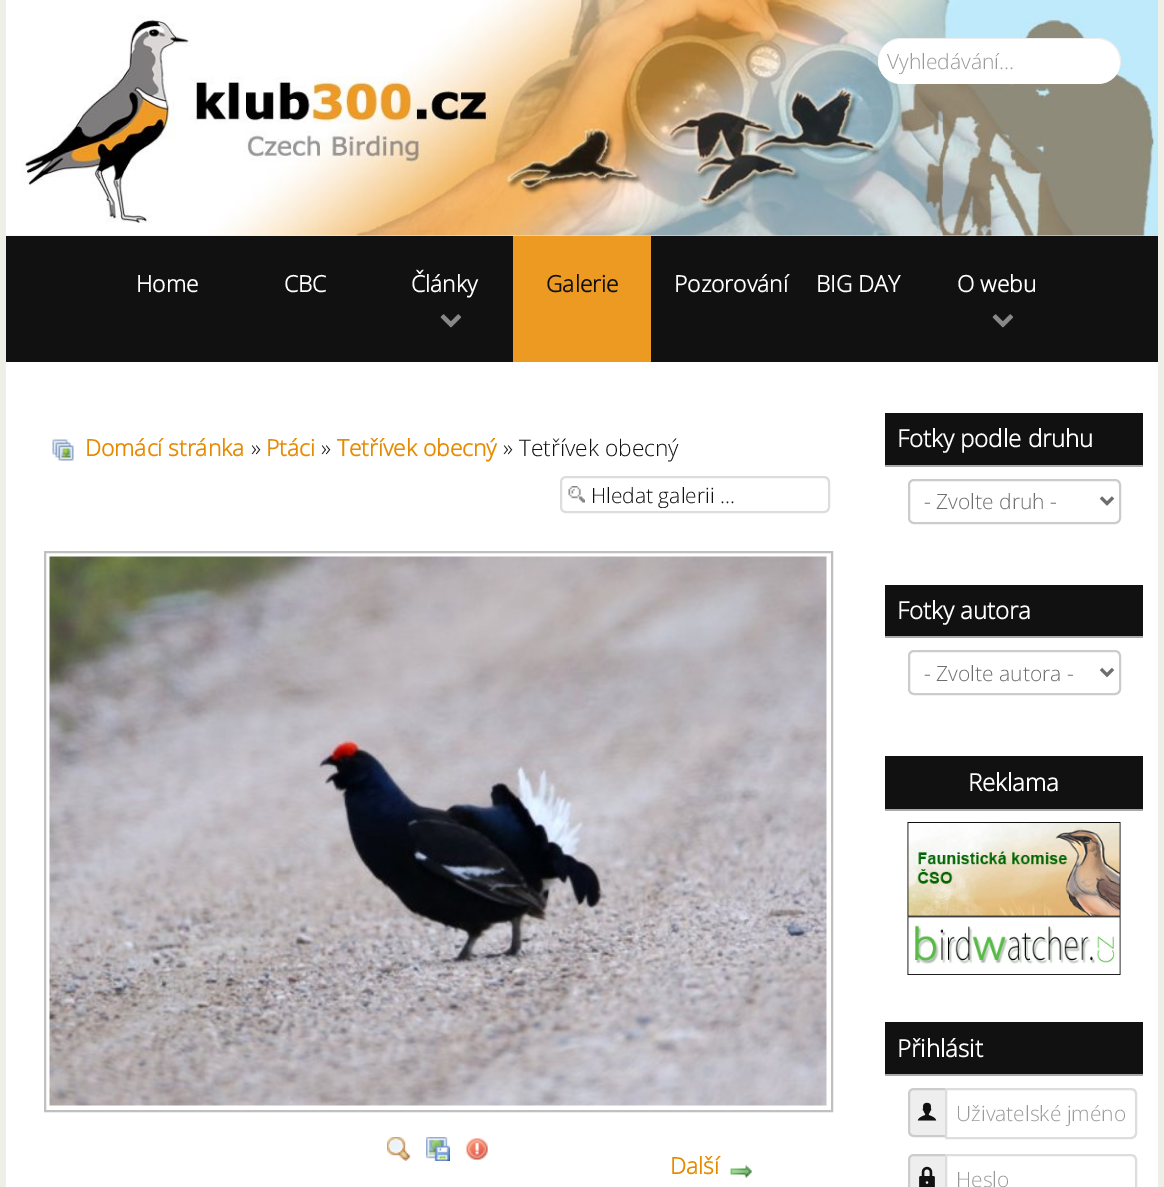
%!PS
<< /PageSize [1164 1187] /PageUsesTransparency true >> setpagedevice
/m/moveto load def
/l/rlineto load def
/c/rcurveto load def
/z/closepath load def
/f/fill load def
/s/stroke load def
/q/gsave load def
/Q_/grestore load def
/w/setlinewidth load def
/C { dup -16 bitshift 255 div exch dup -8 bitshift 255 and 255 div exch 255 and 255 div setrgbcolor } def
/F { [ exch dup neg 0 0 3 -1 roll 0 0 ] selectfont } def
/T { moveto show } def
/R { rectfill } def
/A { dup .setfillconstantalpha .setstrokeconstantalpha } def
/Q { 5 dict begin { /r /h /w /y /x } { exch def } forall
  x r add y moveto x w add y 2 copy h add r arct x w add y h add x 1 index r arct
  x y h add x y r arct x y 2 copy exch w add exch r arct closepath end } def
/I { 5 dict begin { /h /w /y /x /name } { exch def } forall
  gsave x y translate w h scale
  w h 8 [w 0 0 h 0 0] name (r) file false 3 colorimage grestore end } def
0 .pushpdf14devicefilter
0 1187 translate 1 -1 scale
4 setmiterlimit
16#EEEFE6 C
0 0 1164 1187 R
(1.rgb) 6 0 1152 236 I
16#FFFFFF C
878 38 243 46 23 Q f
0.07 A
16#000000 C
900 39 m 198 0 l 12 0 22 10 22 23 c 0 1 l 0 3 -1 7 -2 10 c 2 -4 3 -8 3 -12 c 0 -13 -10 -23 -23 -23 c -197 0 l -13 0 -23 10 -23 23 c 0 -12 10 -22 22 -22 c z f
/OpenSans-Light 21 F
1 A
16#999999 C
(Vyhledávání...) 887 69 T
16#111111 C
6 236 1152 126 R
/OpenSans-Bold 22.75 F
16#FFFFFF C
(Home) 136 292 T
(CBC) 284 292 T
(Články) 411 292 T
(2.rgb) 440 314 22 14 I
16#ED9A22 C
513 236 138 126 R
16#111111 C
(Galerie) 546 292 T
16#FFFFFF C
(Pozorování) 674 292 T
(BIG DAY) 816 292 T
(O webu) 957 292 T
(2.rgb) 992 314 22 14 I
6 362 1152 825 R
(3.rgb) 52 439 22 22 I
16#E68A00 C
(Domácí stránka) 85 456 T
/OpenSans-Light 22.75 F
16#111111 C
(») 251 456 T
/OpenSans-Bold 22.75 F
16#E68A00 C
(Ptáci) 266 456 T
/OpenSans-Light 22.75 F
16#111111 C
(») 321 456 T
/OpenSans-Bold 22.75 F
16#E68A00 C
(Tetřívek obecný) 337 456 T
/OpenSans-Light 22.75 F
16#111111 C
(» Tetřívek obecný) 503 456 T
(4.rgb) 568 486 17 17 I
16#ECECEC C
566 478 m 258 0 l 2 0 4 3 4 5 c 0 -3 -2 -6 -5 -6 c -257 0 l -3 0 -5 3 -5 6 c 0 -2 2 -5 5 -5 c z f
16#DDDDDD C
2 w
561 477 268 35 5 Q s
/OpenSans-Light 21 F
16#111111 C
(Hledat galerii ...) 591 503 T
16#C0C0C0 C
45 552 787 559 rectstroke
(5.rgb) 49 556 778 550 I
(6.rgb) 387 1137 24 24 I
(7.rgb) 426 1137 24 24 I
(8.rgb) 466 1138 22 22 I
/OpenSans-Bold 22.75 F
16#E68A00 C
(Další) 670 1174 T
(9.rgb) 730 1165 22 13 I
16#111111 C
885 413 258 52 R
16#AAAAAA C
885 465 258 2 R
/OpenSans-Bold 24 F
16#FFFFFF C
(Fotky podle druhu) 897 447 T
16#CCCCCC C
909 480 211 43 5 Q s
16#6D6D6D C
3 w
1101 497.5 m 6 6 l 6 -6 l s
/OpenSans-Light 21 F
(- Zvolte druh -) 924 509 T
16#111111 C
885 585 258 51 R
16#AAAAAA C
885 636 258 2 R
/OpenSans-Bold 24 F
16#FFFFFF C
(Fotky autora) 897 619 T
16#CCCCCC C
2 w
909 651 211 43 5 Q s
16#6D6D6D C
3 w
1101 669 m 6 6 l 6 -6 l s
/OpenSans-Light 21 F
(- Zvolte autora -) 924 681 T
16#111111 C
885 756 258 53 R
16#AAAAAA C
885 809 258 2 R
/OpenSans-Bold 24 F
16#FFFFFF C
(Reklama) 968 791 T
(10.rgb) 907 822 214 95 I
(11.rgb) 907 916 214 59 I
16#111111 C
885 1022 258 52 R
16#AAAAAA C
885 1074 258 2 R
16#FFFFFF C
(Přihlásit) 897 1057 T
16#EEEEEE C
914 1089 m 32 0 l 0 47 l -32 0 l -3 0 -5 -2 -5 -5 c 0 -37 l 0 -3 2 -5 5 -5 c z q f Q_
16#CCCCCC C
2 w
s
(12.rgb) 917 1102 20 19 I
16#FFFFFF C
945 1088 m 186 0 l 3.5 0 6 2.5 6 6 c 0 39 l 0 3.5 -2.5 6 -6 6 c -186 0 l z f
16#ECECEC C
947 1089 m 0 1 l 184 0 l 2 0 5 3 5 5 c 0 -3 -2 -6 -5 -6 c z f
16#DDDDDD C
946 1089 m 185 0 l 3 0 5 2 5 5 c 0 39 l 0 3 -2 5 -5 5 c -185 0 l z s
/OpenSans-Light 21 F
16#999999 C
(Uživatelské jméno) 956 1121 T
16#EEEEEE C
914 1155 m 32 0 l 0 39 l -32 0 l -3 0 -5 -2 -5 -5 c 0 -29 l 0 -3 2 -5 5 -5 c z q f Q_
16#CCCCCC C
s
(13.rgb) 919 1166 16 21 I
16#FFFFFF C
945 1154 m 186 0 l 3.5 0 6 2.5 6 6 c 0 27 l 0 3.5 -2.5 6 -6 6 c -186 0 l z f
16#ECECEC C
947 1155 m 0 1 l 184 0 l 2 0 5 3 5 5 c 0 -3 -2 -6 -5 -6 c z f
16#DDDDDD C
946 1155 m 185 0 l 3 0 5 2 5 5 c 0 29 l 0 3 -2 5 -5 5 c -185 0 l z s
16#999999 C
(Heslo) 956 1187 T
.poppdf14devicefilter showpage
